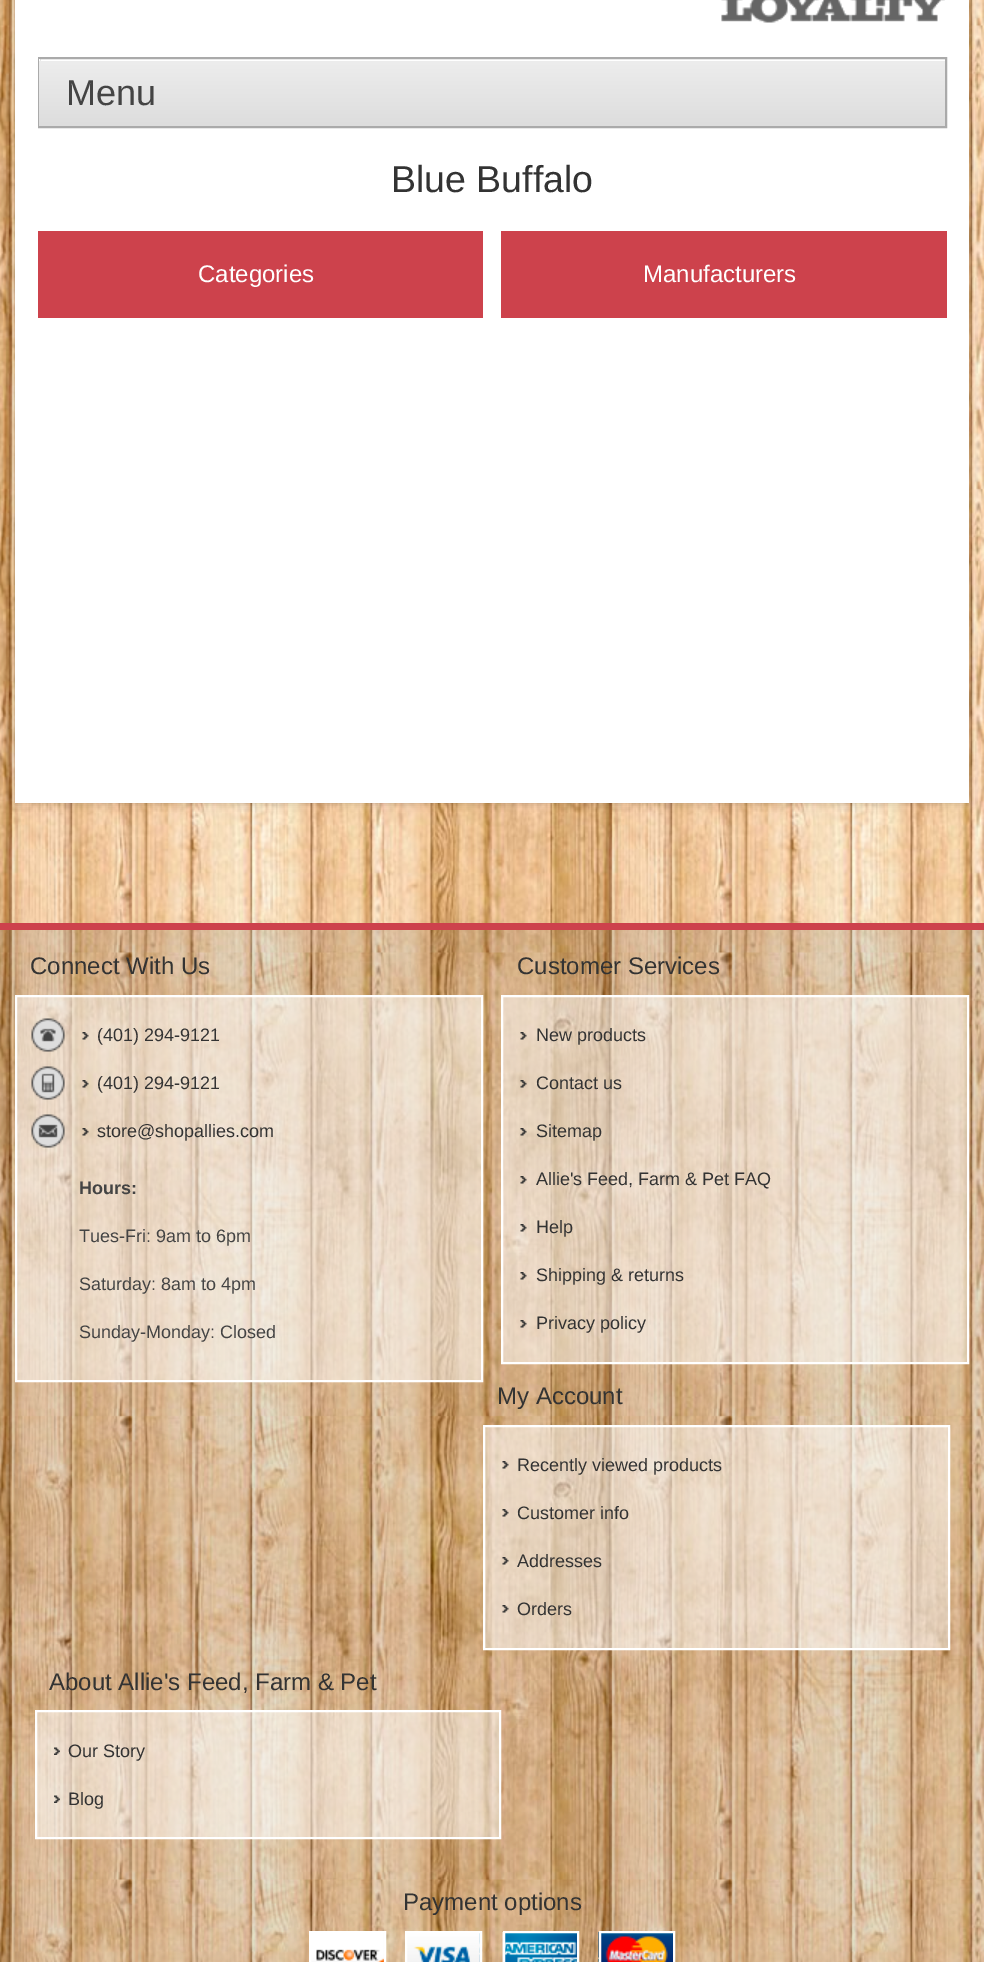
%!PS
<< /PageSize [984 1962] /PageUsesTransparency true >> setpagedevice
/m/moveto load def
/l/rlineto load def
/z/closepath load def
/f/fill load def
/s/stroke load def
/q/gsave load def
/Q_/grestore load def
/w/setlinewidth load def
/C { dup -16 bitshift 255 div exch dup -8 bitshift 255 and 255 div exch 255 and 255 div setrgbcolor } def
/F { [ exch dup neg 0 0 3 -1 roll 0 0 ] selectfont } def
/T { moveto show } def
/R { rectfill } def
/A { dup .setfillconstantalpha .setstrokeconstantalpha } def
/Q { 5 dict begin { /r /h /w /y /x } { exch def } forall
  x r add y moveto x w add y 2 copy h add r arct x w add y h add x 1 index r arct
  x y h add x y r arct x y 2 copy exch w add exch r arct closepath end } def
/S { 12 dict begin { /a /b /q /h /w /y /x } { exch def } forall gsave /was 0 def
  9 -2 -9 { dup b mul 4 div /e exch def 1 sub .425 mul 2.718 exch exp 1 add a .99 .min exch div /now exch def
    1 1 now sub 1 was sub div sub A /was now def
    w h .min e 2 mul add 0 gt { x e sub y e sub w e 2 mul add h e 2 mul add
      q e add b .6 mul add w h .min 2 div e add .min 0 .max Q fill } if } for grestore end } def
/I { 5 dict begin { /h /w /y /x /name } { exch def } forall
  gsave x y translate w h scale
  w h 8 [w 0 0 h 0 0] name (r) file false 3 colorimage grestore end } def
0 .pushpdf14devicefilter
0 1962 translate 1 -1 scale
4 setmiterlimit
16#FFFFFF C
0 0 984 1962 R
(1.rgb) 0 0 984 1962 I
16#000000 C
15 -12 954 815 0 4 .2 S
16#FFFFFF C
15 0 954 803 R
(2.rgb) 721 0 224 23 I
16#AAAAAA C
2 w
39 58 907 69 rectstroke
q 39 61 m 906 0 l 0 65 l -906 0 l z clip newpath
<< /ShadingType 2 /ColorSpace /DeviceRGB /Coords [492 58 492 126] /Extend [true true] /Function << /FunctionType 2 /Domain [0 1] /C0 [.933 .933 .933] /C1 [.867 .867 .867] /N 1 >> >> shfill Q_
16#FFFFFF C
39 59 1 2 R
/LiberationSans-Regular 36 F
16#444444 C
(Menu) 66 105 T
/LiberationSans-Regular 37.5 F
16#333333 C
(Blue Buffalo) 391 192 T
16#CD424C C
38 231 445 87 R
/LiberationSans-Regular 24 F
16#FFFFFF C
(Categories) 198 282 T
16#CD424C C
501 231 446 87 R
16#FFFFFF C
(Manufacturers) 643 282 T
0.1 A
16#000000 C
0 930 984 1032 R
1 A
16#CD414C C
0 923 984 7 R
16#333333 C
(Connect With Us) 30 974 T
0.5 A
16#FFFFFF C
16 996 m 466 0 l 0 385 l -466 0 l z f
1 A
16 996 m 466 0 l 0 385 l -466 0 l z s
(3.rgb) 31 1018 34 34 I
(4.rgb) 82 1032 7 8 I
/LiberationSans-Regular 18 F
16#333333 C
(\(401\) 294-9121) 97 1041 T
(5.rgb) 31 1066 34 34 I
(6.rgb) 82 1080 7 8 I
(\(401\) 294-9121) 97 1089 T
(7.rgb) 31 1114 34 34 I
(8.rgb) 82 1128 7 8 I
(store@shopallies.com) 97 1137 T
/LiberationSans-Bold 18 F
16#444444 C
(Hours:) 79 1194 T
/LiberationSans-Regular 18 F
(Tues-Fri: 9am to 6pm) 79 1242 T
(Saturday: 8am to 4pm) 79 1290 T
(Sunday-Monday: Closed) 79 1338 T
/LiberationSans-Regular 24 F
16#333333 C
(Customer Services) 517 974 T
0.5 A
16#FFFFFF C
502 996 m 466 0 l 0 367 l -466 0 l z f
1 A
502 996 m 466 0 l 0 367 l -466 0 l z s
(9.rgb) 520 1032 7 8 I
/LiberationSans-Regular 18 F
16#333333 C
(New products) 536 1041 T
(10.rgb) 520 1080 7 8 I
(Contact us) 536 1089 T
(11.rgb) 520 1128 7 8 I
(Sitemap) 536 1137 T
(12.rgb) 520 1176 7 8 I
(Allie's Feed, Farm & Pet FAQ) 536 1185 T
(13.rgb) 520 1224 7 8 I
(Help) 536 1233 T
(14.rgb) 520 1272 7 8 I
(Shipping & returns) 536 1281 T
(15.rgb) 520 1320 7 8 I
(Privacy policy) 536 1329 T
/LiberationSans-Regular 24 F
(My Account) 497 1404 T
0.5 A
16#FFFFFF C
484 1426 m 465 0 l 0 223 l -465 0 l z f
1 A
484 1426 m 465 0 l 0 223 l -465 0 l z s
(16.rgb) 502 1461 7 8 I
/LiberationSans-Regular 18 F
16#333333 C
(Recently viewed products) 517 1471 T
(17.rgb) 502 1509 7 8 I
(Customer info) 517 1519 T
(18.rgb) 502 1557 7 8 I
(Addresses) 517 1567 T
(19.rgb) 502 1605 7 8 I
(Orders) 517 1615 T
/LiberationSans-Regular 24 F
(About Allie's Feed, Farm & Pet) 49 1690 T
0.5 A
16#FFFFFF C
36 1711 m 464 0 l 0 127 l -464 0 l z f
1 A
36 1711 m 464 0 l 0 127 l -464 0 l z s
(20.rgb) 54 1747 6 8 I
/LiberationSans-Regular 18 F
16#333333 C
(Our Story) 68 1757 T
(21.rgb) 54 1795 6 8 I
(Blog) 68 1805 T
/LiberationSans-Regular 24 F
(Payment options) 403 1910 T
(22.rgb) 311 1933 73 29 I
16#FFFFFF C
310 1932 75 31 rectstroke
(23.rgb) 407 1933 73 29 I
406 1932 75 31 rectstroke
(24.rgb) 502 1932 75 30 I
504 1932 74 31 rectstroke
(25.rgb) 598 1932 75 30 I
600 1932 74 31 rectstroke
.poppdf14devicefilter showpage
